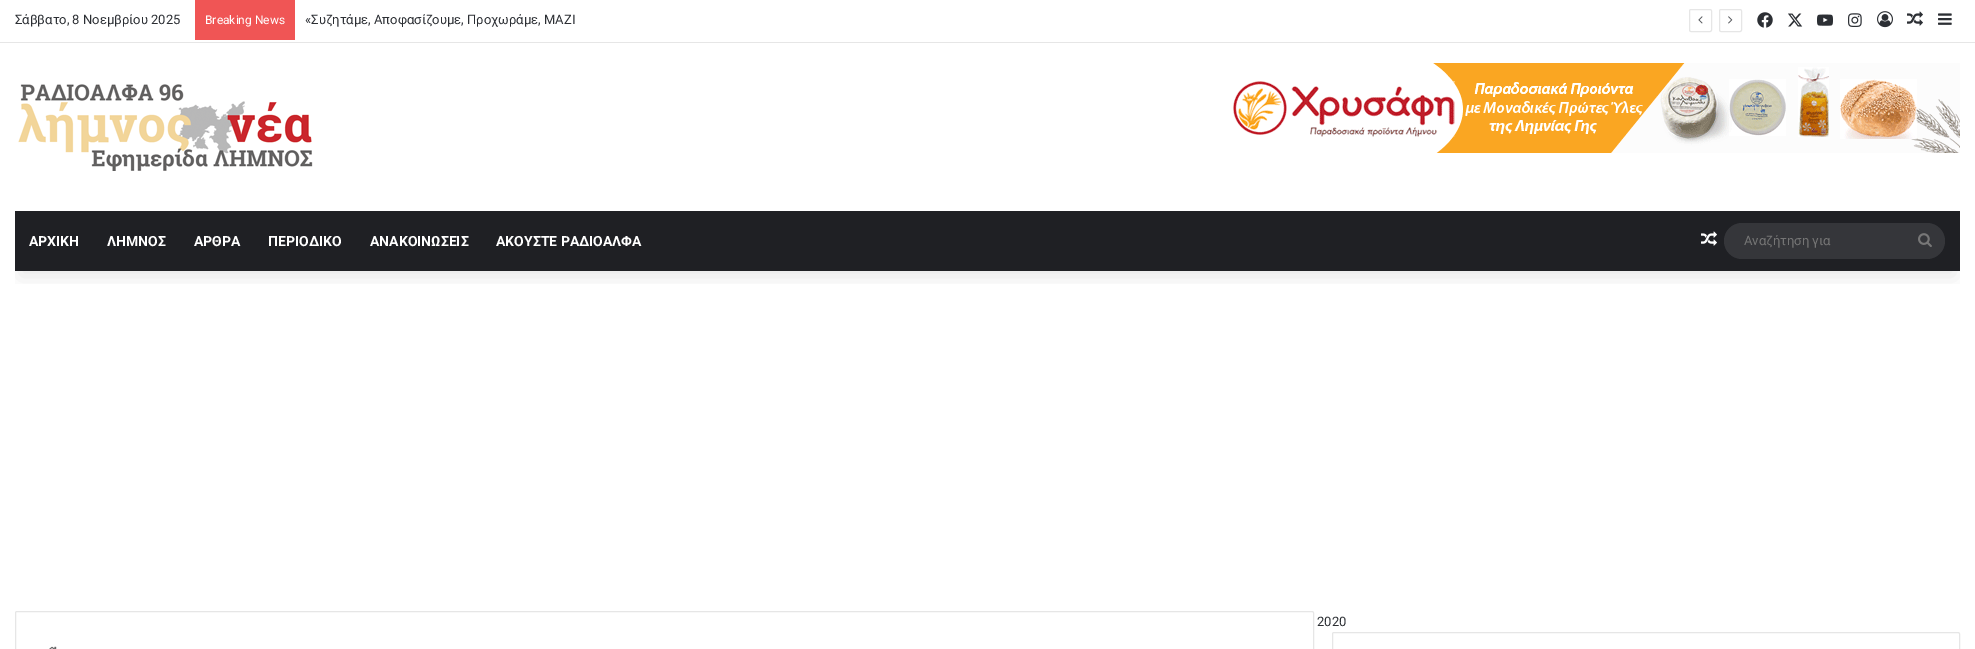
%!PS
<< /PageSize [1975 649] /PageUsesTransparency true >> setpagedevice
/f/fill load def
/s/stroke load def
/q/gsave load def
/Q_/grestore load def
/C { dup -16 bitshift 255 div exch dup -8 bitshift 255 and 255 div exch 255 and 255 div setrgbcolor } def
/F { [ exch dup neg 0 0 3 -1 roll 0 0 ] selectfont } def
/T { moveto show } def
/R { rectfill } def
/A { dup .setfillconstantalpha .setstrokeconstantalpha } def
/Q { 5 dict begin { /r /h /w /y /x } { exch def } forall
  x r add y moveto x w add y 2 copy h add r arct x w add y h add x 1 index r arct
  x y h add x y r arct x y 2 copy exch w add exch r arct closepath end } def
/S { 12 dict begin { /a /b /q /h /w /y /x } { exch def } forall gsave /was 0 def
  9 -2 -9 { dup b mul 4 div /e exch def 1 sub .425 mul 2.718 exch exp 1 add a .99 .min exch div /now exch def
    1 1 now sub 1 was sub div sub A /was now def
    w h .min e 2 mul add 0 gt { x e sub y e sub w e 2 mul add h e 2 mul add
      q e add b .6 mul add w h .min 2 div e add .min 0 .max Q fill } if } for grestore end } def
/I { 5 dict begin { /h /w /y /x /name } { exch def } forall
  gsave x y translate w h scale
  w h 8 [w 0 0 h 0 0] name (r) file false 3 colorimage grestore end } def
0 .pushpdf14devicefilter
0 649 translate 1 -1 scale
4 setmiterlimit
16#FFFFFF C
0 0 1975 649 R
q
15 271 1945 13 rectclip
16#000000 C
20 45 1935 231 0 10 .1 S
Q_
16#E6E6E6 C
0 42 1975 1 R
/Roboto-Regular 13 F
16#2C2F34 C
(Σάββατο, 8 Νοεμβρίου 2025) 15 24 T
16#F05555 C
195 0 100 40 R
/Roboto-Regular 12 F
16#FFFFFF C
(Breaking News) 205 24 T
/Roboto-Regular 13 F
16#2C2F34 C
(«Συζητάμε, Αποφασίζουμε, Προχωράμε, ΜΑΖΙ) 305 24 T
16#E6E6E6 C
1689.5 9.5 22 22 1.5 Q s
(1.rgb) 1698 16 5 8 I
1719.5 9.5 22 22 1.5 Q s
(2.rgb) 1728 16 5 8 I
(3.rgb) 1757 12 16 16 I
(4.rgb) 1788 13 15 14 I
(5.rgb) 1817 14 16 12 I
(6.rgb) 1848 13 14 14 I
(7.rgb) 1877 11 16 17 I
(8.rgb) 1907 11 16 15 I
(9.rgb) 1938 13 14 12 I
(10.rgb) 18 84 295 87 I
(11.rgb) 1233 63 727 90 I
16#1F2024 C
15 211 1945 60 R
/Roboto-Bold 14 F
16#FFFFFF C
(ΑΡΧΙΚΗ) 29 246 T
(ΛΗΜΝΟΣ) 107 246 T
(ΑΡΘΡΑ) 194 246 T
(ΠΕΡΙΟΔΙΚΟ) 268 246 T
(ΑΝΑΚΟΙΝΩΣΕΙΣ) 370 246 T
(ΑΚΟΥΣΤΕ ΡΑΔΙΟΑΛΦΑ) 496 246 T
(12.rgb) 1701 231 16 15 I
16#35363A C
1724 223 221 36 18 Q f
/Roboto-Regular 13 F
16#757575 C
(Αναζήτηση για) 1744 245 T
(13.rgb) 1918 233 14 14 I
16#E6E6E6 C
15.5 611.5 1298 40 1.5 Q s
(14.rgb) 49 646 8 3 I
16#2C2F34 C
(2020) 1317 626 T
16#E6E6E6 C
1332.5 632.5 627 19 1.5 Q s
.poppdf14devicefilter showpage
